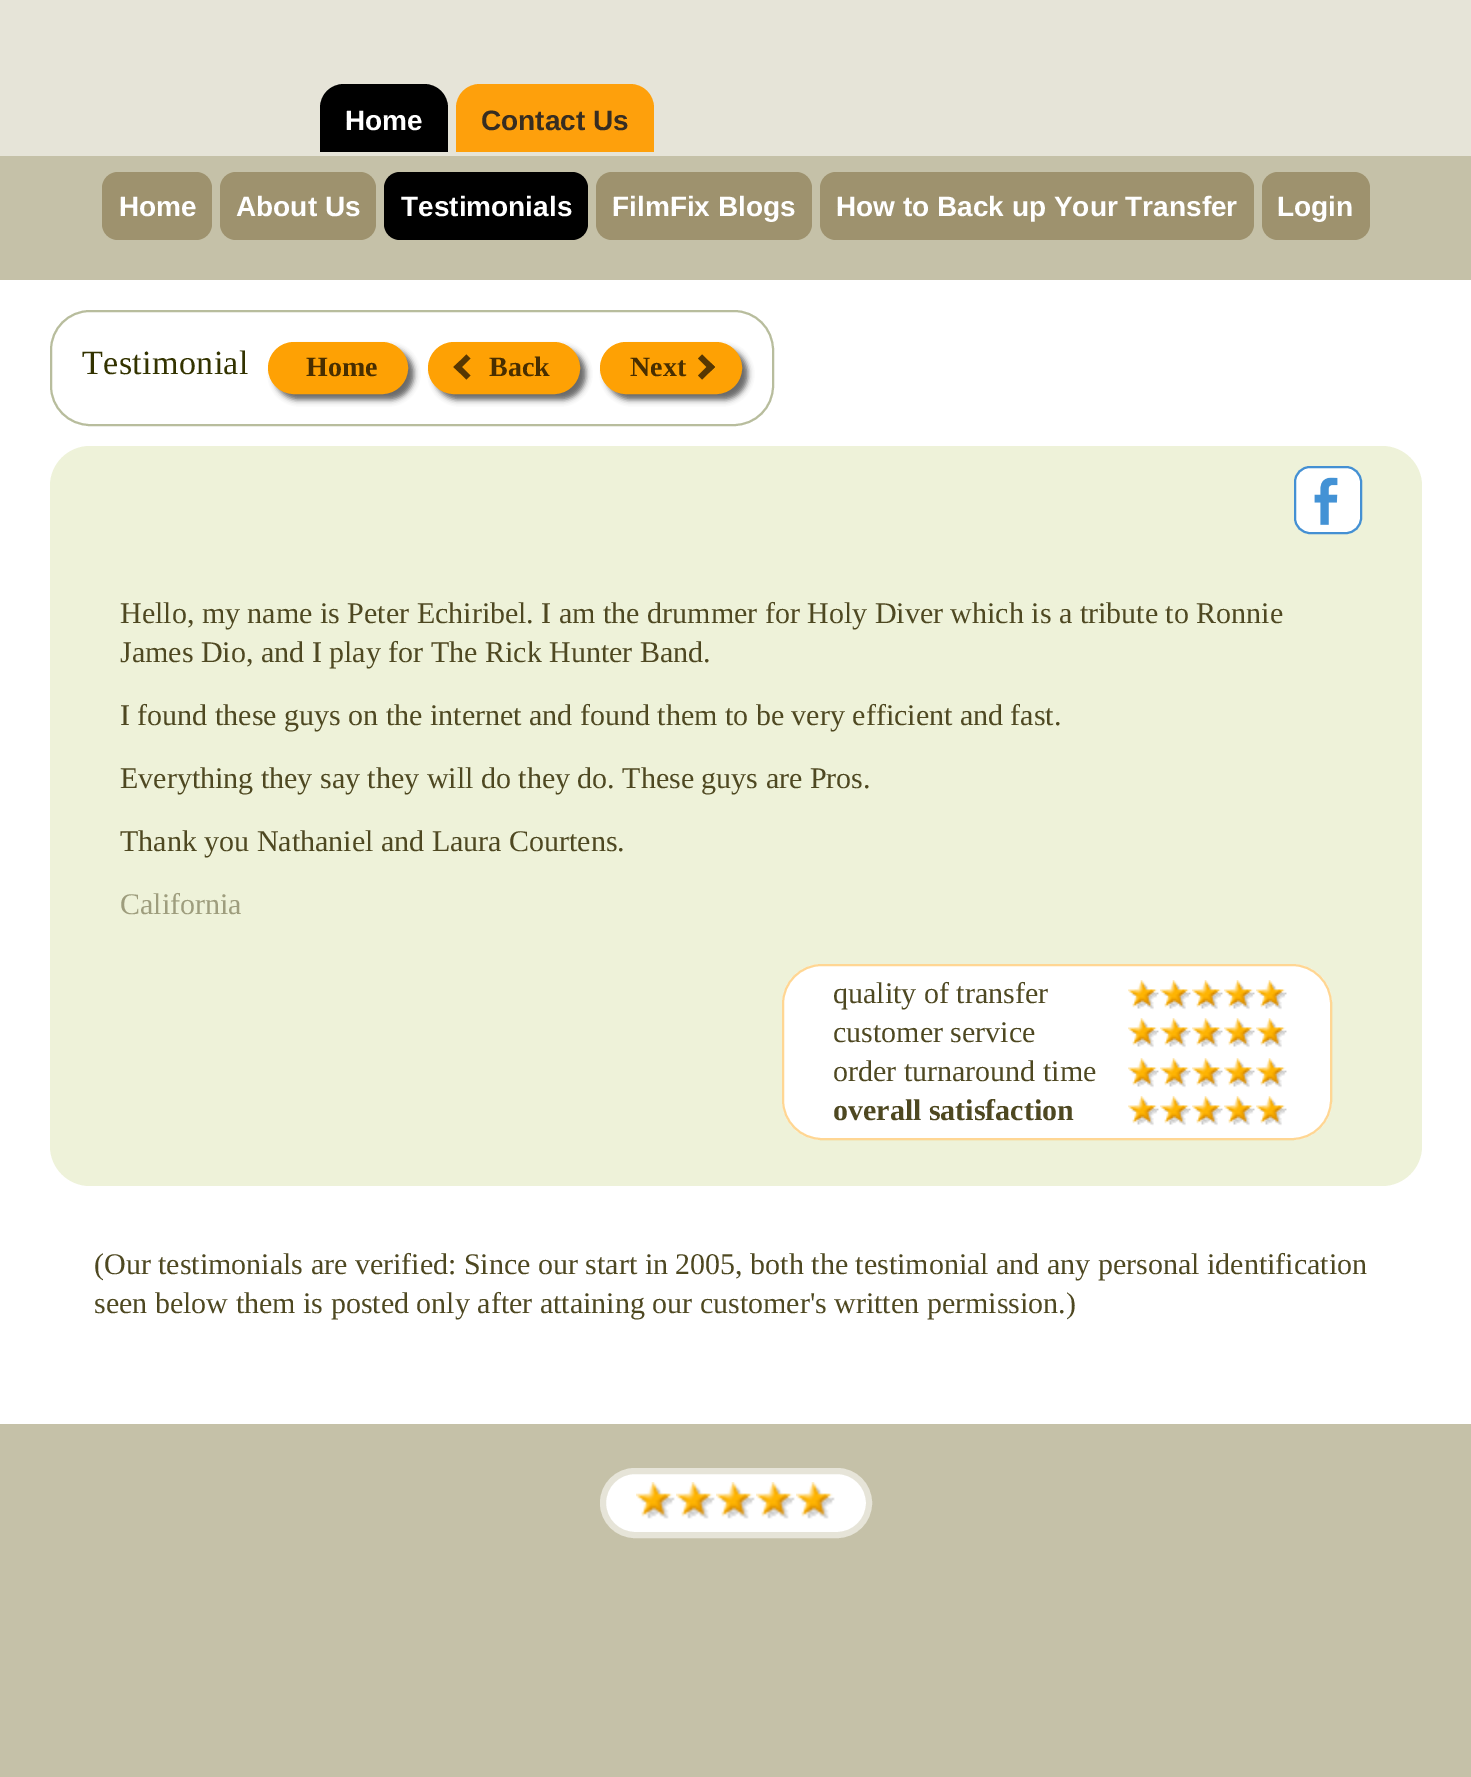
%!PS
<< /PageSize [1471 1777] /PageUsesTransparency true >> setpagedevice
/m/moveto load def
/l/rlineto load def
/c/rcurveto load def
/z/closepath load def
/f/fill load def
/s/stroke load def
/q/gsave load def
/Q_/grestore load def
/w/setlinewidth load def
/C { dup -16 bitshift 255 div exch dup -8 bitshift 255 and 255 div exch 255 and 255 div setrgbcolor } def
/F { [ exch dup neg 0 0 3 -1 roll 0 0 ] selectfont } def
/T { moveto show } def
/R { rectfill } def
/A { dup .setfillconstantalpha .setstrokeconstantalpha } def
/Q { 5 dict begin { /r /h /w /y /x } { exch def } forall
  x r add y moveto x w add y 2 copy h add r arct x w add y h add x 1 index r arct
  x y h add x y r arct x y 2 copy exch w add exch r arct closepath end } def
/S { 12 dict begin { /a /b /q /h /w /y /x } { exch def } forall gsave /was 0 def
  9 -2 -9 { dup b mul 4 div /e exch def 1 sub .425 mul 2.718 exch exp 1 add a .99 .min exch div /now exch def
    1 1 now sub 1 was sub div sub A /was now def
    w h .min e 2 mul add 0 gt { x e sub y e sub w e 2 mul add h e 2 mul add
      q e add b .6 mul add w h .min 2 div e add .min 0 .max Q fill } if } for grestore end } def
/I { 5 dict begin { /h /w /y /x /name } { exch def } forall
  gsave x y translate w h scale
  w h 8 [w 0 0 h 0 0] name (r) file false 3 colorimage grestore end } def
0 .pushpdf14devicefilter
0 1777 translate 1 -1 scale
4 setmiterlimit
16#C5C1A8 C
0 0 1471 1777 R
16#E6E4D8 C
0 0 1471 156 R
16#000000 C
344 84 m 80 0 l 13.5 0 24 10.5 24 24 c 0 44 l -128 0 l 0 -44 l 0 -13.5 10.5 -24 24 -24 c z f
/LiberationSans-Bold 28 F
16#FFFFFF C
(Home) 345 130 T
16#FEA00C C
480 84 m 150 0 l 13.5 0 24 10.5 24 24 c 0 44 l -198 0 l 0 -44 l 0 -13.5 10.5 -24 24 -24 c z f
16#372D21 C
(Contact Us) 481 130 T
16#9E926E C
102 172 110 68 16 Q f
16#FFFFFF C
(Home) 119 216 T
16#9E926E C
220 172 156 68 16 Q f
16#FFFFFF C
(About Us) 236 216 T
16#000000 C
384 172 204 68 16 Q f
16#FFFFFF C
(Testimonials) 401 216 T
16#9E926E C
596 172 216 68 16 Q f
16#FFFFFF C
(FilmFix Blogs) 612 216 T
16#9E926E C
820 172 434 68 16 Q f
16#FFFFFF C
(How to Back up Your Transfer) 836 216 T
16#9E926E C
1262 172 108 68 16 Q f
16#FFFFFF C
(Login) 1277 216 T
0 280 1471 1144 R
16#B8BD9D C
2 w
51 311 722 114 39 Q s
/LiberationSerif-Regular 34 F
16#333300 C
82 374 m .4 0 (Testimonial) ashow
16#666666 C
274 348 140 52 26 3 1 S
16#FEA104 C
269 343 138 50 25 Q q f Q_
s
/LiberationSerif-Bold 28 F
16#482E00 C
(Home) 306 376 T
16#666666 C
434 348 152 52 26 3 1 S
16#FEA104 C
429 343 150 50 25 Q q f Q_
s
16#563702 C
470.5 375.5 m -4 4 l -13 -12.5 l 4.5 -4 l z f
470.5 358.5 m -12.5 12.5 l -4.5 -4 l 13 -12.5 l z f
16#482E00 C
(Back) 489 376 T
16#666666 C
606 348 142 52 26 3 1 S
16#FEA104 C
601 343 140 50 25 Q q f Q_
s
16#482E00 C
(Next) 630 376 T
16#563702 C
698 358.5 m 4 -4 l 13 12.5 l -4.5 4 l z f
698 375.5 m 12.5 -12.5 l 4.5 4 l -13 12.5 l z f
16#EEF2D9 C
50 446 1372 740 40 Q f
16#FFFFFF C
1295 467 66 66 15 Q q f Q_
16#4490D3 C
s
(1.rgb) 1314 477 24 48 I
/LiberationSerif-Regular 30 F
16#4E4821 C
(Hello, my name is Peter Echiribel. I am the drummer for Holy Diver which is a tribute to Ronnie) 120 623 T
(James Dio, and I play for The Rick Hunter Band.) 120 662 T
(I found these guys on the internet and found them to be very efficient and fast.) 120 725 T
(Everything they say they will do they do. These guys are Pros.) 120 788 T
(Thank you Nathaniel and Laura Courtens.) 120 851 T
16#9E9D7D C
(California) 120 914 T
16#FFFFFF C
782 964 550 176 40 Q f
0.43 A
16#FEA104 C
783 965 548 174 39 Q s
1 A
16#4E4821 C
(quality of transfer) 833 1003 T
(2.rgb) 1128 980 31 30 I
(2.rgb) 1160 980 31 30 I
(2.rgb) 1192 980 31 30 I
(2.rgb) 1224 980 31 30 I
(2.rgb) 1256 980 31 30 I
(customer service) 833 1042 T
(2.rgb) 1128 1018 31 30 I
(2.rgb) 1160 1018 31 30 I
(2.rgb) 1192 1018 31 30 I
(2.rgb) 1224 1018 31 30 I
(2.rgb) 1256 1018 31 30 I
(order turnaround time) 833 1081 T
(3.rgb) 1128 1058 31 30 I
(3.rgb) 1160 1058 31 30 I
(3.rgb) 1192 1058 31 30 I
(3.rgb) 1224 1058 31 30 I
(3.rgb) 1256 1058 31 30 I
/LiberationSerif-Bold 30 F
(overall satisfaction) 833 1120 T
(2.rgb) 1128 1096 31 30 I
(2.rgb) 1160 1096 31 30 I
(2.rgb) 1192 1096 31 30 I
(2.rgb) 1224 1096 31 30 I
(2.rgb) 1256 1096 31 30 I
/LiberationSerif-Regular 30 F
(\(Our testimonials are verified: Since our start in 2005, both the testimonial and any personal identification) 94 1274 T
(seen below them is posted only after attaining our customer's written permission.\)) 94 1313 T
16#FFFFFF C
603 1471 266 64 32 Q q f Q_
16#E6E4D8 C
6 w
s
(4.rgb) 636 1482 39 37 I
(4.rgb) 676 1482 39 37 I
(4.rgb) 716 1482 39 37 I
(4.rgb) 756 1482 39 37 I
(4.rgb) 796 1482 39 37 I
.poppdf14devicefilter showpage
